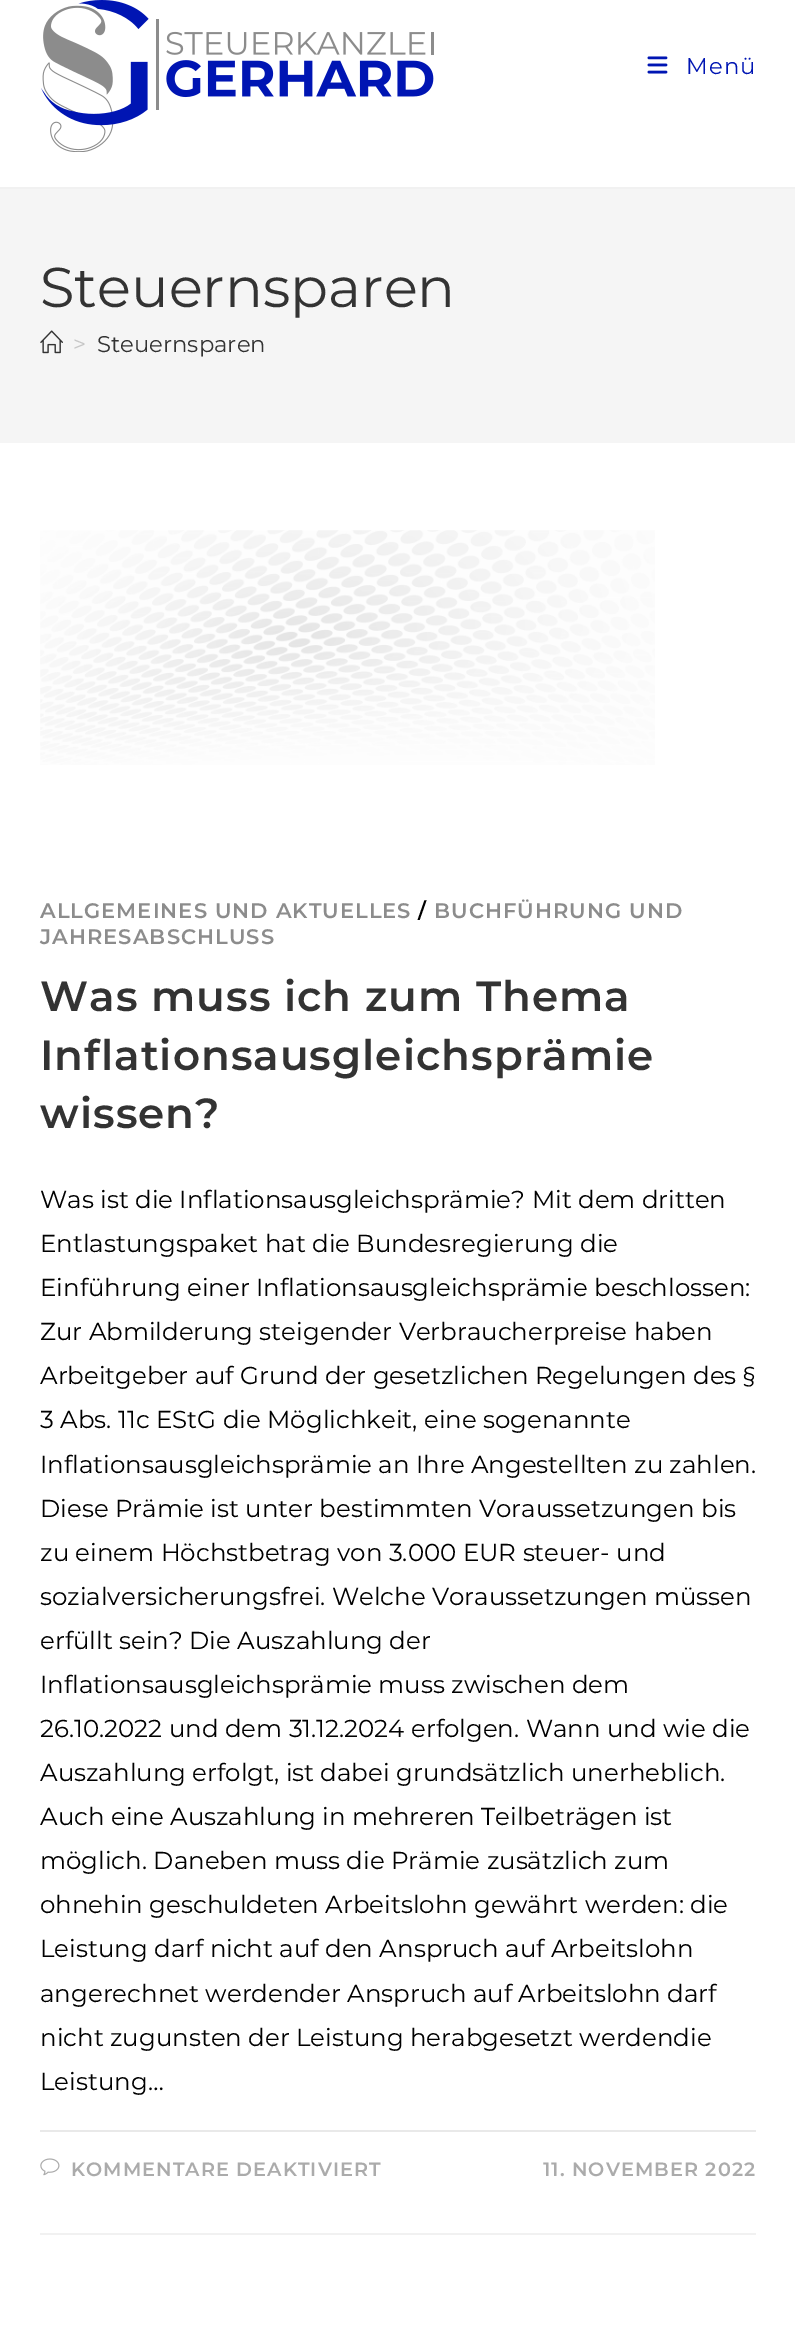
%!PS
<< /PageSize [795 2346] >> setpagedevice
/m/moveto load def
/C { dup -16 bitshift 255 div exch dup -8 bitshift 255 and 255 div exch 255 and 255 div setrgbcolor } def
/F { [ exch dup neg 0 0 3 -1 roll 0 0 ] selectfont } def
/T { moveto show } def
/R { rectfill } def
/I { 5 dict begin { /h /w /y /x /name } { exch def } forall
  gsave x y translate w h scale
  w h 8 [w 0 0 h 0 0] name (r) file false 3 colorimage grestore end } def
0 2346 translate 1 -1 scale
4 setmiterlimit
16#FFFFFF C
0 0 795 2346 R
16#F1F1F1 C
0 187 795 2 R
(1.rgb) 41 0 393 152 I
(2.rgb) 647 56 21 18 I
/Montserrat-Thin 22.75 F
16#0015B3 C
686 74 m 1.05 0 (Menü) ashow
16#F5F5F5 C
0 189 795 254 R
/Montserrat-Thin 56 F
16#333333 C
(Steuernsparen) 40 307 T
(3.rgb) 40 330 23 24 I
/Montserrat-Thin 22.75 F
16#C6C6C6 C
(>) 73 352 T
16#333333 C
(Steuernsparen) 97 352 T
16#F1F1F1 C
40 2233 716 2 R
(4.rgb) 40 530 615 235 I
/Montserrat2-Thin 21 F
16#8C8C8C C
40 918 m 1.05 0 (ALLGEMEINES UND AKTUELLES) ashow
16#000000 C
418 918 m 1.05 0 (/) ashow
16#8C8C8C C
434 918 m 1.05 0 (BUCHFÜHRUNG UND) ashow
40 944 m 1.05 0 (JAHRESABSCHLUSS) ashow
/Montserrat2-Thin 42 F
16#333333 C
40 1011 m 1.05 0 (Was muss ich zum Thema) ashow
40 1070 m 1.05 0 (Inflationsausgleichsprämie) ashow
40 1128 m 1.05 0 (wissen?) ashow
/Montserrat-Thin 24.5 F
16#000000 C
(Was ist die Inflationsausgleichsprämie? Mit dem dritten) 40 1208 T
(Entlastungspaket hat die Bundesregierung die) 40 1252 T
(Einführung einer Inflationsausgleichsprämie beschlossen:) 40 1296 T
(Zur Abmilderung steigender Verbraucherpreise haben) 40 1340 T
(Arbeitgeber auf Grund der gesetzlichen Regelungen des §) 40 1384 T
(3 Abs. 11c EStG die Möglichkeit, eine sogenannte) 40 1428 T
(Inflationsausgleichsprämie an Ihre Angestellten zu zahlen.) 40 1473 T
(Diese Prämie ist unter bestimmten Voraussetzungen bis) 40 1517 T
(zu einem Höchstbetrag von 3.000 EUR steuer- und) 40 1561 T
(sozialversicherungsfrei. Welche Voraussetzungen müssen) 40 1605 T
(erfüllt sein? Die Auszahlung der) 40 1649 T
(Inflationsausgleichsprämie muss zwischen dem) 40 1693 T
(26.10.2022 und dem 31.12.2024 erfolgen. Wann und wie die) 40 1737 T
(Auszahlung erfolgt, ist dabei grundsätzlich unerheblich.) 40 1781 T
(Auch eine Auszahlung in mehreren Teilbeträgen ist) 40 1825 T
(möglich. Daneben muss die Prämie zusätzlich zum) 40 1869 T
(ohnehin geschuldeten Arbeitslohn gewährt werden: die) 40 1913 T
(Leistung darf nicht auf den Anspruch auf Arbeitslohn) 40 1957 T
(angerechnet werdender Anspruch auf Arbeitslohn darf) 40 2002 T
(nicht zugunsten der Leistung herabgesetzt werdendie) 40 2046 T
(Leistung…) 40 2090 T
16#E9E9E9 C
40 2130 716 2 R
(5.rgb) 40 2158 20 18 I
/Montserrat2-Thin 19.25 F
16#ABABAB C
71 2176 m 1.05 0 (KOMMENTARE DEAKTIVIERT) ashow
543 2176 m 1.05 0 (11. NOVEMBER 2022) ashow
showpage
